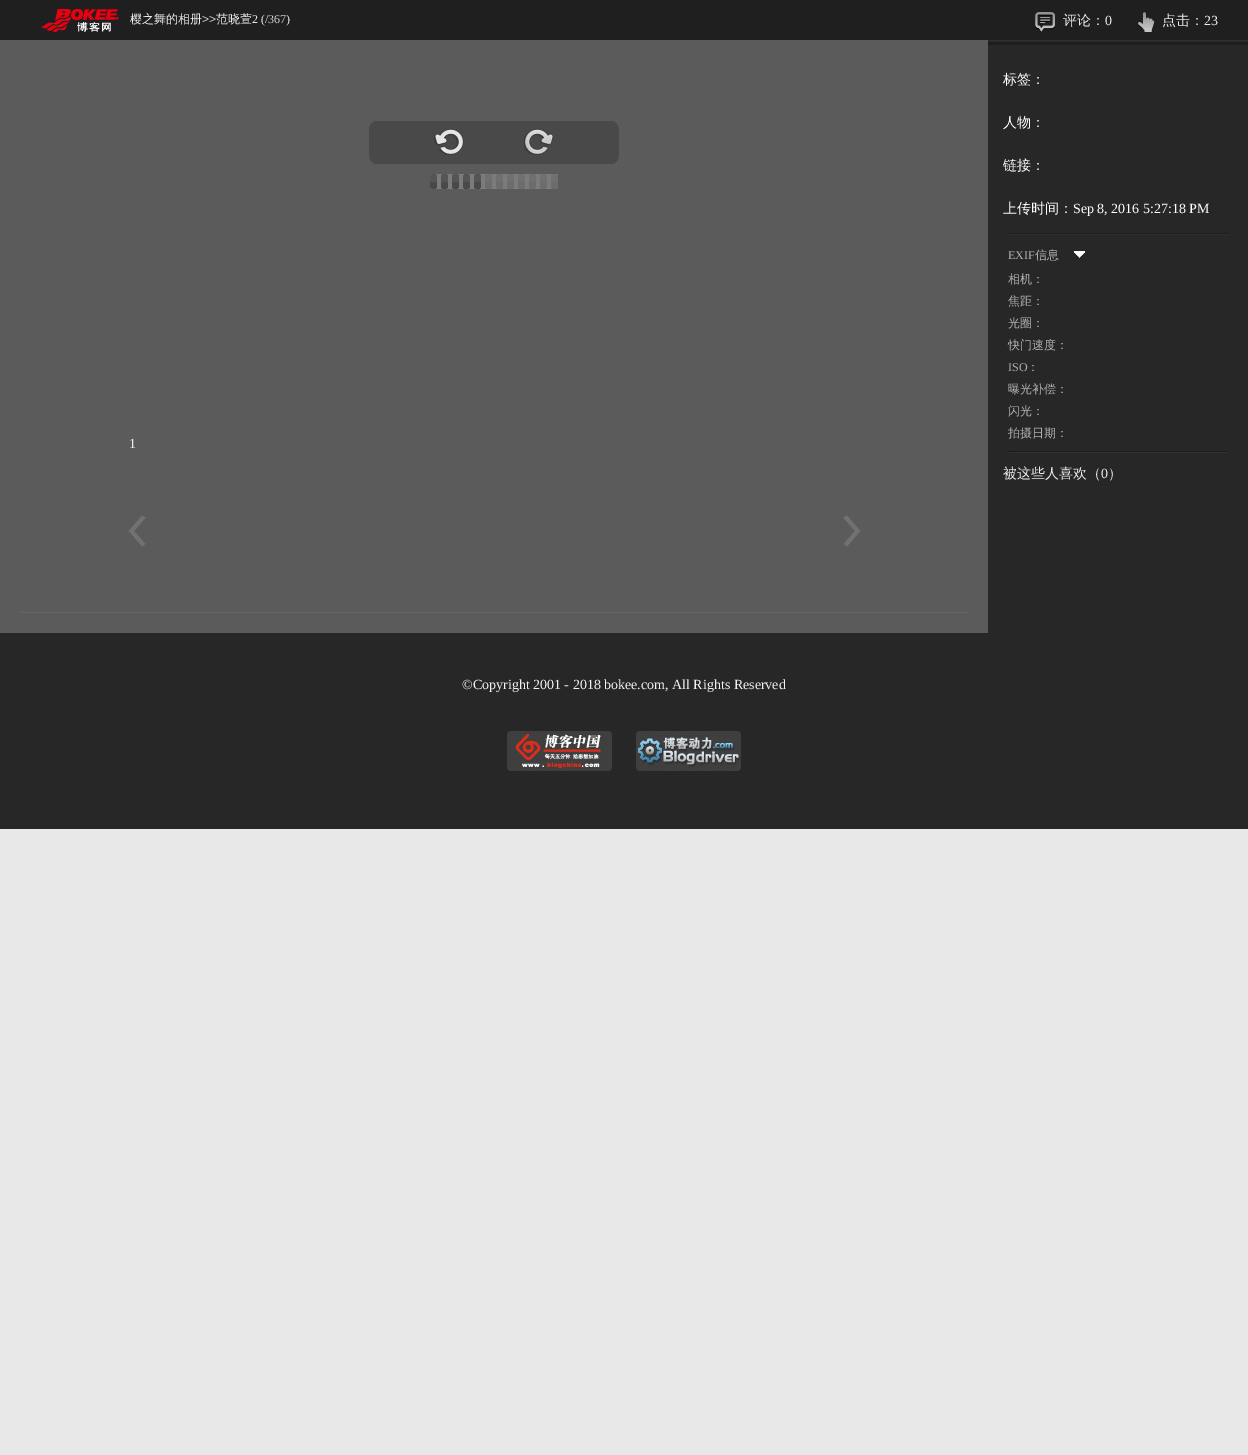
%!PS
<< /PageSize [1248 1455] >> setpagedevice
/C { dup -16 bitshift 255 div exch dup -8 bitshift 255 and 255 div exch 255 and 255 div setrgbcolor } def
/F { [ exch dup neg 0 0 3 -1 roll 0 0 ] selectfont } def
/T { moveto show } def
/R { rectfill } def
/I { 5 dict begin { /h /w /y /x /name } { exch def } forall
  gsave x y translate w h scale
  w h 8 [w 0 0 h 0 0] name (r) file false 3 colorimage grestore end } def
0 1455 translate 1 -1 scale
4 setmiterlimit
16#E8E8E8 C
0 0 1248 1455 R
16#1F1F1F C
0 0 1248 40 R
(1.rgb) 41 9 78 23 I
/WenQuanYiZenHei-Medium 12 F
16#EBEBEB C
(樱之舞的相册) 130 23 T
/LiberationSans-Regular 12 F
16#D0D0D0 C
(>>) 202 23 T
/WenQuanYiZenHei-Medium 12 F
16#EBEBEB C
(范晓萱) 216 23 T
/LiberationSerif-Regular 12 F
(2 \(/) 252 23 T
16#D0D0D0 C
(367) 268 23 T
16#EBEBEB C
(\)) 286 23 T
(2.rgb) 1035 12 20 20 I
/WenQuanYiZenHei-Medium 14 F
(评论：) 1063 25 T
/LiberationSerif-Regular 14 F
(0) 1105 25 T
(3.rgb) 1138 12 17 20 I
/WenQuanYiZenHei-Medium 14 F
(点击：) 1162 25 T
/LiberationSerif-Regular 14 F
(23) 1204 25 T
16#272727 C
988 41 260 592 R
16#5B5B5B C
0 40 988 593 R
16#656565 C
20 612 948 1 R
(4.rgb) 369 121 250 43 I
(5.rgb) 434 129 30 26 I
(6.rgb) 524 129 30 26 I
(7.rgb) 430 174 128 15 I
16#EBEBEB C
(1) 129 448 T
(8.rgb) 128 515 18 32 I
(9.rgb) 843 515 18 32 I
16#1E1E1E C
988 42 260 3 R
16#303030 C
988 40 260 1 R
/WenQuanYiZenHei-Medium 14 F
16#FEFEFE C
(标签：) 1003 84 T
(人物：) 1003 127 T
(链接：) 1003 170 T
(上传时间：) 1003 213 T
/LiberationSerif-Regular 14 F
(Sep 8, 2016 5:27:18 PM) 1073 213 T
(10.rgb) 1008 451 220 2 I
(10.rgb) 1008 233 220 2 I
/LiberationSerif-Regular 12 F
16#B0B0B0 C
(EXIF) 1008 259 T
/WenQuanYiZenHei-Medium 12 F
(信息) 1035 259 T
(11.rgb) 1074 251 11 7 I
(相机：) 1008 283 T
(焦距：) 1008 305 T
(光圈：) 1008 327 T
(快门速度：) 1008 349 T
/LiberationSerif-Regular 12 F
(ISO) 1008 371 T
/WenQuanYiZenHei-Medium 12 F
(：) 1027 371 T
(曝光补偿：) 1008 393 T
(闪光：) 1008 415 T
(拍摄日期：) 1008 437 T
/WenQuanYiZenHei-Medium 14 F
16#EBEBEB C
(被这些人喜欢（) 1003 478 T
/LiberationSerif-Regular 14 F
(0) 1101 478 T
/WenQuanYiZenHei-Medium 14 F
(）) 1108 478 T
16#272727 C
0 633 1248 196 R
/LiberationSerif-Regular 14 F
16#F2F2F2 C
(©Copyright 2001 - 2018 bokee.com, All Rights Reserved) 462 689 T
(12.rgb) 507 731 105 40 I
(13.rgb) 636 731 105 40 I
showpage
